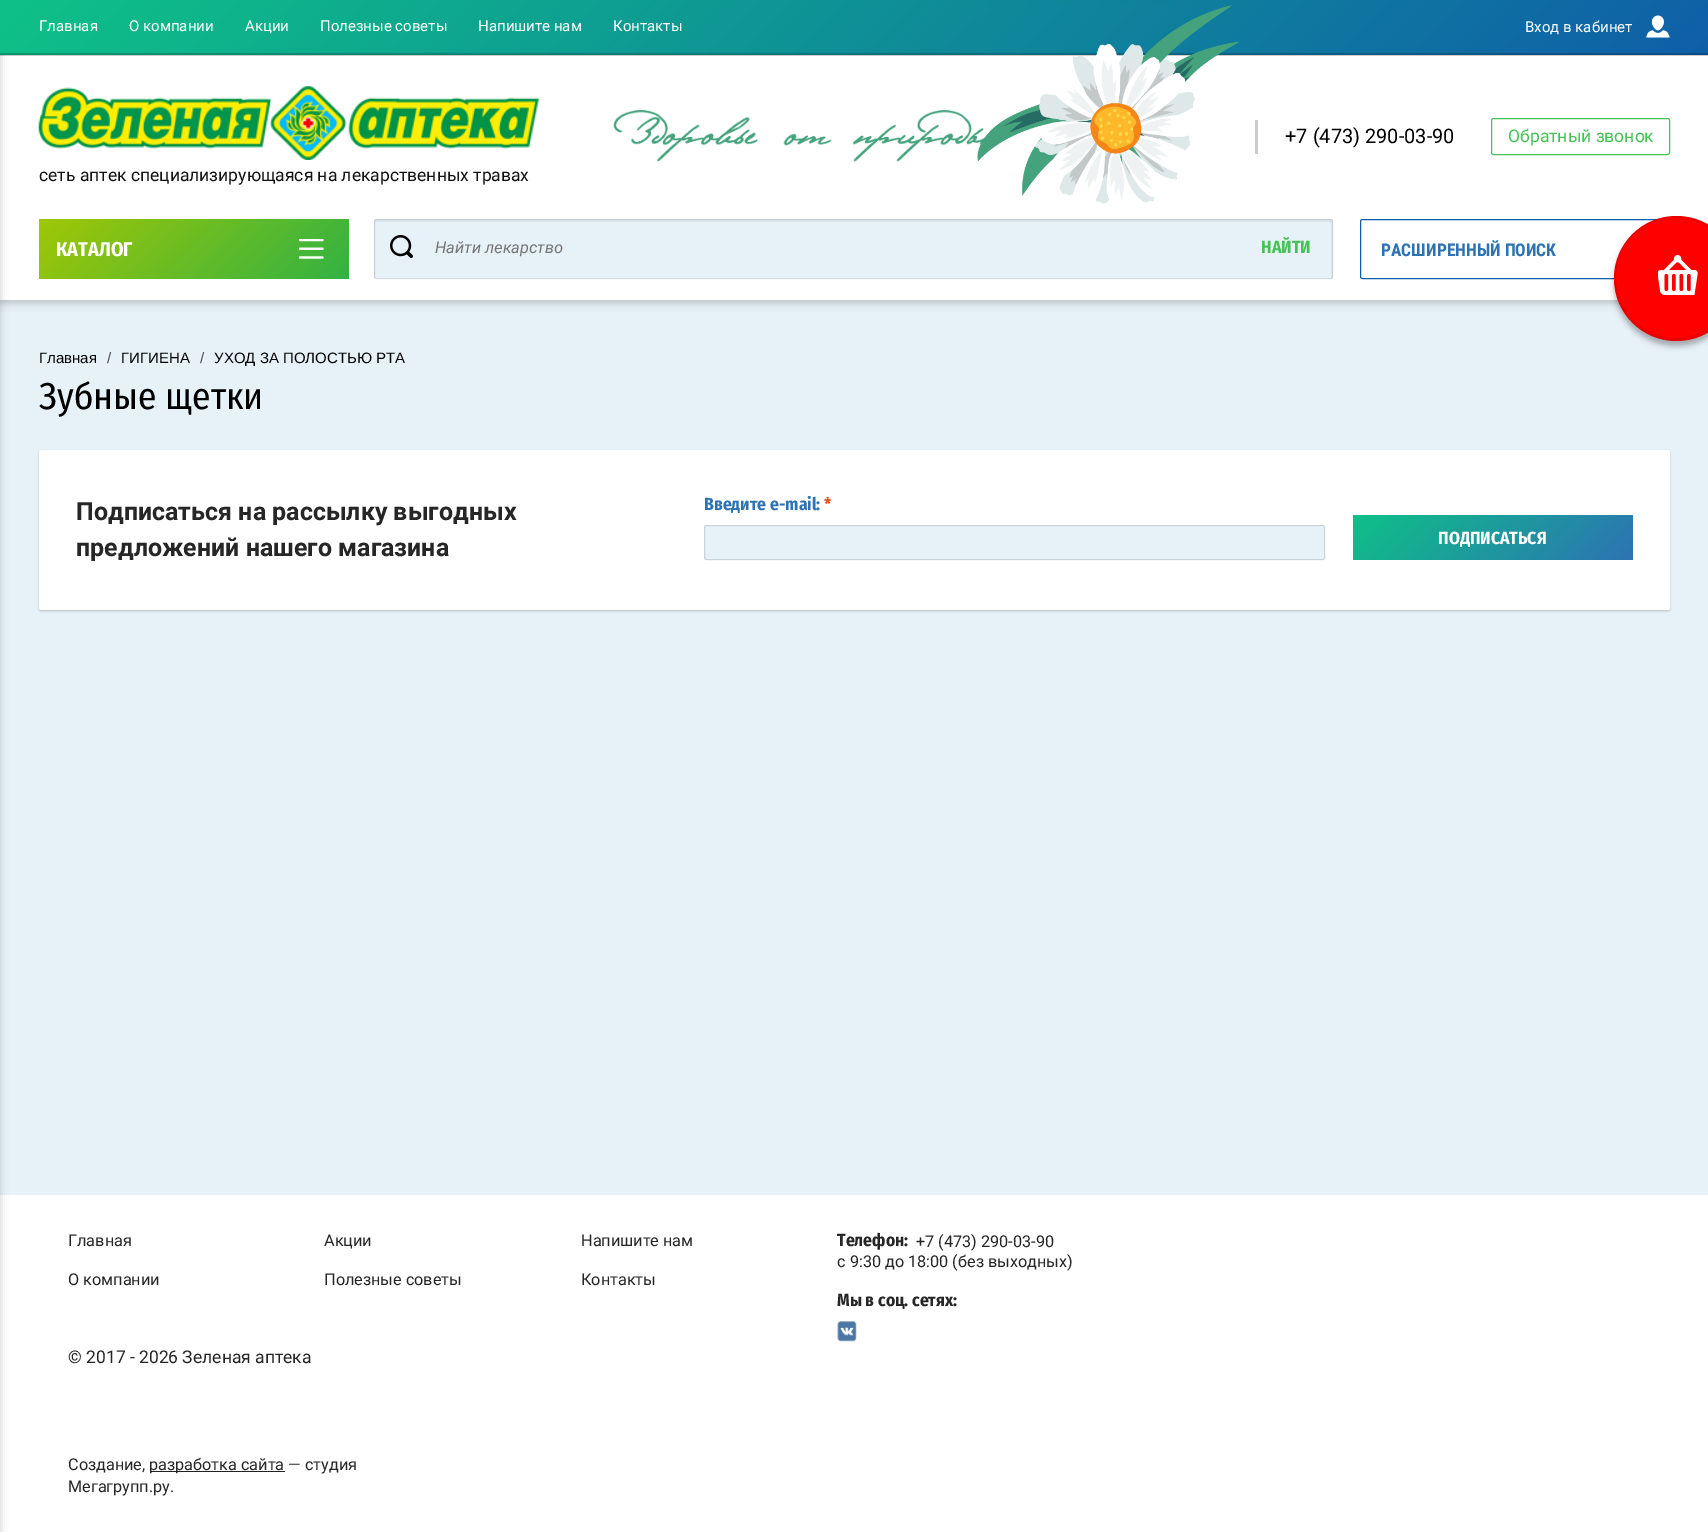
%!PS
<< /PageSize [1708 1532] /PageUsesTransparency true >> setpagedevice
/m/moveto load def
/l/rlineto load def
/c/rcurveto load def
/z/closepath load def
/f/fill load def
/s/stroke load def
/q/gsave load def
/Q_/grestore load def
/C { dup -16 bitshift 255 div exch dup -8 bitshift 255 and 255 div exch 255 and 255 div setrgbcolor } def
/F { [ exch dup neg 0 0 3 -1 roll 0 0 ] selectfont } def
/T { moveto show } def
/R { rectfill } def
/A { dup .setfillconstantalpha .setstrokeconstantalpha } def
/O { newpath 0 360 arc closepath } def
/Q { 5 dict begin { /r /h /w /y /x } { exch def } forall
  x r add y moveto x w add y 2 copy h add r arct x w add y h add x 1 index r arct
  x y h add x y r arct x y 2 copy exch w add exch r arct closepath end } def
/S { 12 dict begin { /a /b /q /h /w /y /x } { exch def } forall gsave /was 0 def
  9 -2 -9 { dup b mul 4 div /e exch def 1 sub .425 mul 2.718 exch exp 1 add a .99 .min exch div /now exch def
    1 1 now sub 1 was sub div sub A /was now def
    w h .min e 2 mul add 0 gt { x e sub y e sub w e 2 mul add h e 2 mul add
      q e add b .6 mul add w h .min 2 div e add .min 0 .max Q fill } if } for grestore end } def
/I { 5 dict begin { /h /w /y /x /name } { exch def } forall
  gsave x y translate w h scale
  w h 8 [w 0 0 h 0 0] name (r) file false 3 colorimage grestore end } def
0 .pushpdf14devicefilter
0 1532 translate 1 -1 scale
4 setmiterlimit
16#E7F1F8 C
0 0 1708 1532 R
16#000000 C
0 3 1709 300 0 4 .2 S
16#FFFFFF C
0 55 1708 245 R
0 1195 1708 337 R
16#000000 C
-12 3 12 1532 0 4 .2 S
q 0 0 m 1708 0 l 0 55 l -1708 0 l z clip newpath
<< /ShadingType 2 /ColorSpace /DeviceRGB /Coords [413 -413 1295 468] /Extend [true true] /Function << /FunctionType 2 /Domain [0 1] /C0 [.055 .757 .529] /C1 [.059 .373 .659] /N 1 >> >> shfill Q_
0.2 A
0 53 1708 3 R
/Roboto-Regular 15 F
1 A
16#FFFFFF C
(Главная) 39 31 T
(О компании) 129 31 T
(Акции) 245 31 T
(Полезные советы) 320 31 T
(Напишите нам) 478 31 T
(Контакты) 613 31 T
(1.rgb) 1646 15 24 23 I
(3.rgb) 613 110 372 52 I
(2.rgb) 977 5 263 199 I
(Вход в кабинет) 1525 32 T
16#CCCCCC C
1255 120 3 34 R
/Roboto-Regular 20 F
16#000000 C
(+7 \(473\) 290-03-90) 1285 143 T
16#47C257 C
1491.5 118.5 178 36 2 Q s
/Roboto-Regular 17.5 F
(Обратный звонок) 1508 142 T
(4.rgb) 38 86 501 74 I
16#121212 C
(сеть аптек специализирующаяся на лекарственных травах) 39 181 T
q 39 219 310 60 2.5 Q clip newpath
<< /ShadingType 2 /ColorSpace /DeviceRGB /Coords [101 156 286 341] /Extend [true true] /Function << /FunctionType 2 /Domain [0 1] /C0 [.627 .78 .024] /C1 [.196 .698 .263] /N 1 >> >> shfill Q_
/FiraSansCondensed-Bold 20 F
16#FFFFFF C
(КАТАЛОГ) 56 256 T
(5.rgb) 299 239 25 20 I
16#E7F1F8 C
374 219 959 60 2.5 Q f
0.1 A
16#202020 C
374.5 219.5 958 59 2 Q s
0.05 A
16#000000 C
376 222 m 954 0 l 1 0 1 1 1 2 c 0 55 l 1 0 2 -1 2 -3 c 0 -54 l 0 -2 -1 -3 -3 -3 c -954 0 l -1 0 -2 1 -2 3 c 0 54 l 0 1 0 2 1 3 c 0 -55 l z f
1 A
(6.rgb) 390 235 23 23 I
/Roboto-Italic 16.25 F
16#757575 C
(Найти лекарство) 435 253 T
/FiraSansCondensed-Bold 17.5 F
16#47C257 C
(НАЙТИ) 1261 253 T
16#0F5FA8 C
1360.5 219.5 309 59 2 Q s
/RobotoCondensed-Bold 17.5 F
16#2D73B3 C
(РАСШИРЕННЫЙ ПОИСК) 1381 256 T
/LiberationSans-Regular 15 F
16#000000 C
(Главная) 39 363 T
16#4A4A4A C
(/) 107 363 T
16#000000 C
(ГИГИЕНА) 121 363 T
16#4A4A4A C
(/) 200 363 T
16#000000 C
(УХОД ЗА ПОЛОСТЬЮ РТА) 214 363 T
/FiraSansCondensed-Regular 37.5 F
(Зубные щетки) 39 409 T
39 451 1631 160 2.5 1 .2 S
16#FFFFFF C
39 450 1631 160 2.5 Q f
/Roboto-Bold 25 F
16#262626 C
(Подписаться на рассылку выгодных) 76 520 T
(предложений нашего магазина) 76 556 T
/FiraSansCondensed-Bold 17.5 F
16#2D73B3 C
(Введите e-mail:) 704 510 T
16#E0531C C
(*) 824 510 T
16#E7F1F8 C
704 525 621 35 2.5 Q f
0.12 A
16#000000 C
704.5 525.5 620 34 2 Q s
1 A
q 1353 515 280 45 2.5 Q clip newpath
<< /ShadingType 2 /ColorSpace /DeviceRGB /Coords [1411 456 1574 619] /Extend [true true] /Function << /FunctionType 2 /Domain [0 1] /C0 [.055 .757 .529] /C1 [.176 .451 .702] /N 1 >> >> shfill Q_
16#FFFFFF C
(ПОДПИСАТЬСЯ) 1438 544 T
/Roboto-Regular 16.25 F
16#262626 C
(Главная) 68 1246 T
(О компании) 68 1285 T
(Акции) 324 1246 T
(Полезные советы) 324 1285 T
(Напишите нам) 581 1246 T
(Контакты) 581 1285 T
/FiraSansCondensed-Bold 17.5 F
(Телефон:) 837 1246 T
/Roboto-Regular 16.25 F
(+7 \(473\) 290-03-90) 916 1247 T
(с 9:30 до 18:00 \(без выходных\)) 837 1267 T
/FiraSansCondensed-Bold 17.5 F
(Мы в соц. сетях:) 837 1306 T
(7.rgb) 837 1321 20 21 I
/Roboto-Regular 17.5 F
(© 2017 - 2026 Зеленая аптека) 68 1363 T
/Roboto-Regular 16.25 F
(Создание,) 68 1470 T
16#212121 C
150 1471 135 1 R
16#262626 C
(разработка сайта — студия) 149 1470 T
(Мегагрупп.ру.) 68 1492 T
16#000000 C
1614 221 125 125 62.5 3 .3 S
16#FF0000 C
1676.5 278.5 62.5 O f
0.09 A
16#000000 C
1676 216 m -34 0 -62 28 -62 62 c 0 35 28 63 62 63 c 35 0 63 -28 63 -63 c 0 -34 -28 -62 -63 -62 c z 1676 218 m -33 0 -60 26 -60 60 c 0 33 27 60 60 60 c 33 0 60 -27 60 -60 c 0 -34 -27 -60 -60 -60 c z eofill
1 A
(8.rgb) 1658 255 40 40 I
.poppdf14devicefilter showpage
